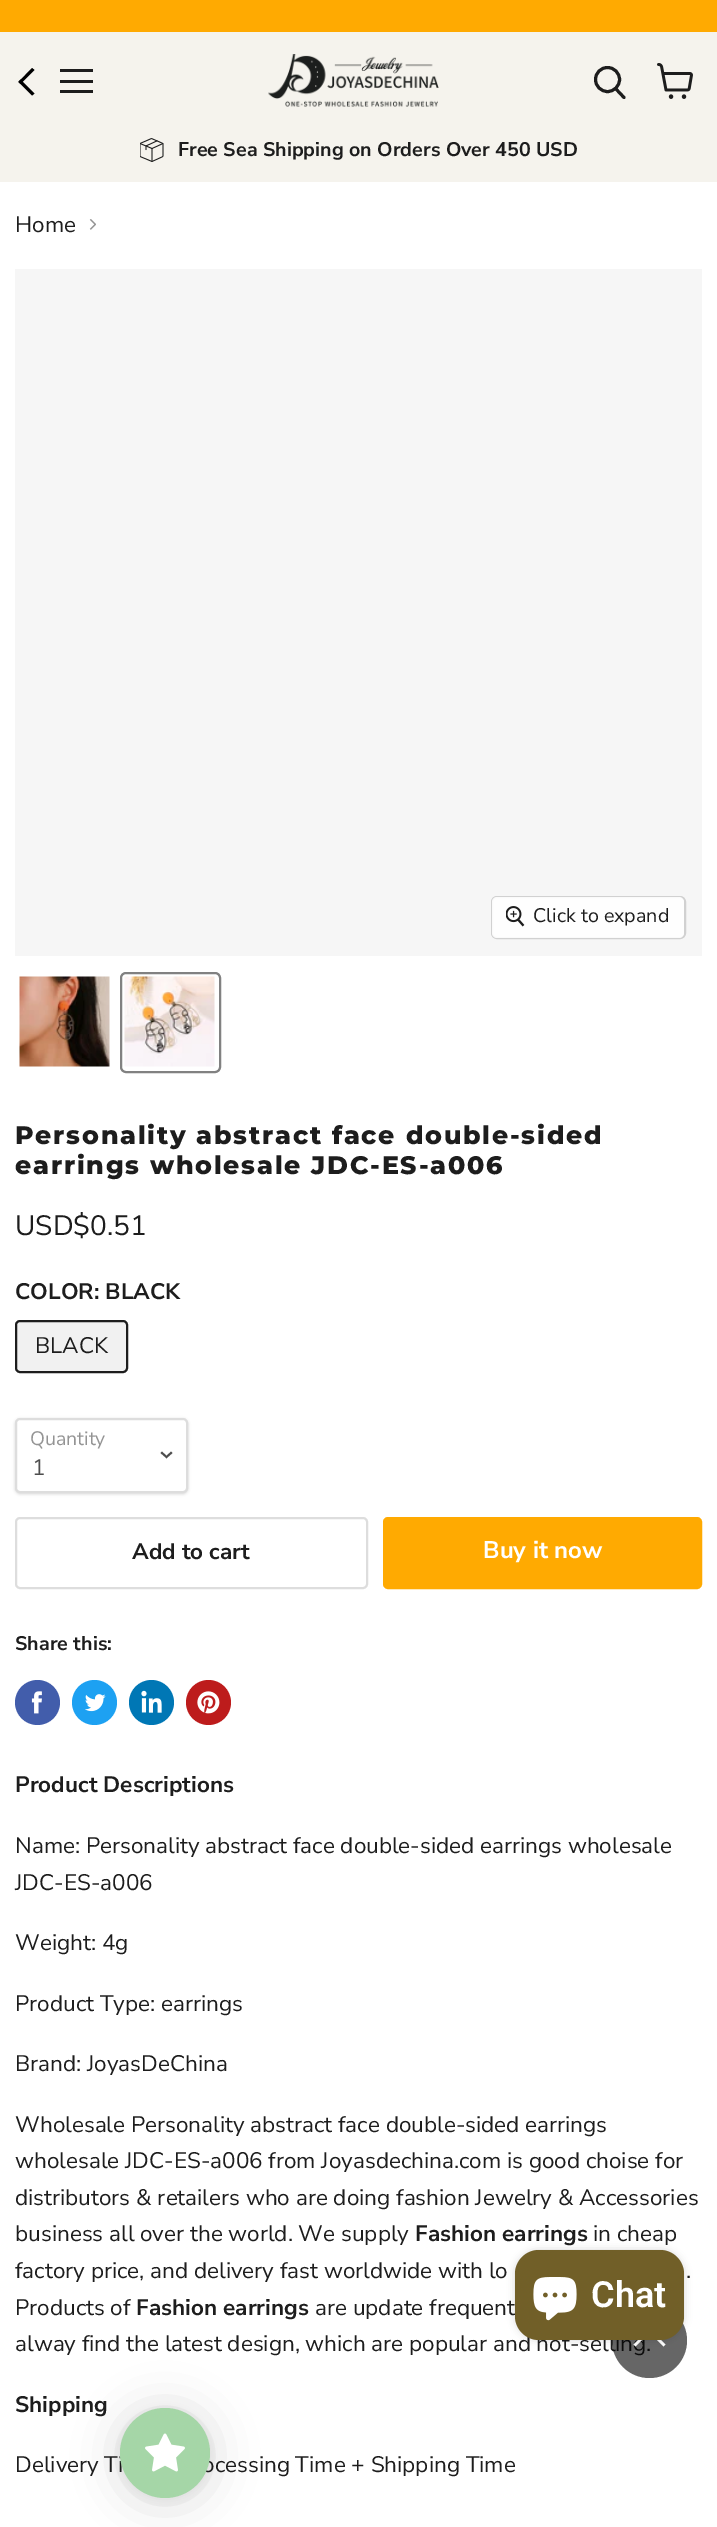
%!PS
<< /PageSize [717 2527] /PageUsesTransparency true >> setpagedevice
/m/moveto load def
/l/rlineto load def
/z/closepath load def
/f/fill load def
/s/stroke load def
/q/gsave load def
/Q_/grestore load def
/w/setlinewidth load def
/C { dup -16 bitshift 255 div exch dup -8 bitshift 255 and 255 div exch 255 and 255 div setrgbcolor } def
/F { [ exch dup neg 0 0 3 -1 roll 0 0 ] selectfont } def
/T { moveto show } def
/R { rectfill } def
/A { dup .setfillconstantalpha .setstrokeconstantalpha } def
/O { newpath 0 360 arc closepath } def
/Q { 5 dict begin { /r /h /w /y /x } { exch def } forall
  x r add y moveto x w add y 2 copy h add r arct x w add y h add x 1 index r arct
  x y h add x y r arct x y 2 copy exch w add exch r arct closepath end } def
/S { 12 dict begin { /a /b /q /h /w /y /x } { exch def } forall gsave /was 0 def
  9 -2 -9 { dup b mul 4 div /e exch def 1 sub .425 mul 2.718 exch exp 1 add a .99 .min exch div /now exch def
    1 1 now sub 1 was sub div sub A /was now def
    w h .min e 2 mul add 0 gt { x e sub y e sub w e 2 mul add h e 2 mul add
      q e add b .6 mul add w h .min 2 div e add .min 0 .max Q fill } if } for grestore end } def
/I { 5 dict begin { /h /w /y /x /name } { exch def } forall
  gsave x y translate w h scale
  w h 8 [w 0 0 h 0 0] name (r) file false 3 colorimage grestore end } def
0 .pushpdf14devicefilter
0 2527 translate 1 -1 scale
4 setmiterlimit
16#FFFFFF C
0 0 717 2527 R
16#FFAA01 C
0 0 717 32 R
16#F5F3ED C
0 32 717 150 R
16#000000 C
20.5 79.5 m 14 14 l -2.5 2 l -13.5 -13.5 l z f
32 68 m 2.5 2 l -14 14 l -2 -2 l z f
16#1D1D1D C
60 69 33 3 R
60 80 33 3 R
60 90 33 3 R
(1.rgb) 657 63 36 36 I
(2.rgb) 268 54 171 53 I
3 w
1 setlinecap
624 97.5 m -8 -8.5 l s
0 setlinecap
607.5 79.5 12 O s
(3.rgb) 140 138 24 24 I
/NunitoSans-Bold 19.7 F
(Free Sea Shipping on Orders Over 450 USD) 178 156 T
/NunitoSans-Regular 22.5 F
(Home) 15 232 T
(4.rgb) 89 219 7 11 I
16#F6F6F6 C
15 269 687 687 R
16#D1D1D1 C
2 w
492 897 193 41 5 Q s
0.9 A
16#FFFFFF C
492 897 192 41 5 Q f
1 A
(5.rgb) 506 906 19 21 I
/NunitoSans-Regular 19.7 F
16#1D1D1D C
(Click to expand) 533 922 T
(6.rgb) 19 976 91 91 I
16#818181 C
121 973 99 99 5 Q s
(7.rgb) 124 976 91 91 I
/Montserrat-ExtraBold 25.3 F
16#1D1D1D C
15 1144 m 1.75 0 (Personality abstract face double-sided) ashow
15 1174 m 1.75 0 (earrings wholesale JDC-ES-a006) ashow
/NunitoSans-Regular 28 F
(USD$0.51) 15 1235 T
/NunitoSans-Bold 22.5 F
(COLOR: BLACK) 15 1299 T
16#F1F1F1 C
16 1321 111 51 4 Q q f Q_
16#1D1D1D C
s
/NunitoSans-Regular 22.5 F
(BLACK) 35 1353 T
16#000000 C
15 1419 173 75 5 1.5 .15 S
16#FFFFFF C
16 1419 171 73 4 Q q f Q_
16#DDDDDD C
s
/NunitoSans-Regular 19.5 F
16#949494 C
(Quantity) 30 1445 T
16#4D4D4D C
1.9 w
2 setlinecap
166.5 1457 m 4.5 -4 l 166.5 1457 m -4.5 -4 l s
/NunitoSans-Regular 22.5 F
(1) 32 1475 T
16#DDDDDD C
2 w
0 setlinecap
16 1518 351 70 4 Q s
/NunitoSans-Bold 22.5 F
16#1D1D1D C
(Add to cart) 132 1559 T
16#FFAA01 C
384 1518 317 70 4 Q q f Q_
s
/NunitoSans-Bold 24 F
16#FFFFFF C
(Buy it now) 483 1558 T
/NunitoSans-Bold 19.7 F
16#1D1D1D C
(Share this:) 15 1650 T
16#425DAB C
37.5 1702.5 22.5 O f
(8.rgb) 31 1691 11 23 I
16#1DA1F2 C
94.5 1702.5 22.5 O f
(9.rgb) 85 1694 21 18 I
16#0077B5 C
151.5 1702.5 22.5 O f
(10.rgb) 141 1690 21 23 I
16#BD1C1C C
208.5 1702.5 22.5 O f
(11.rgb) 197 1691 23 23 I
/NunitoSans-Bold 22.5 F
16#1D1D1D C
(Product Descriptions) 15 1792 T
/NunitoSans-Regular 22.5 F
(Name: Personality abstract face double-sided earrings wholesale) 15 1853 T
(JDC-ES-a006) 15 1890 T
(Weight: 4g) 15 1950 T
(Product Type: earrings) 15 2011 T
(Brand: JoyasDeChina) 15 2071 T
(Wholesale Personality abstract face double-sided earrings) 15 2132 T
(wholesale JDC-ES-a006 from Joyasdechina.com is good choise for) 15 2168 T
(distributors & retailers who are doing fashion Jewelry & Accessories) 15 2205 T
(business all over the world. We supply) 15 2241 T
/NunitoSans-Bold 22.5 F
(Fashion earrings) 415 2241 T
/NunitoSans-Regular 22.5 F
(in cheap) 593 2241 T
(factory price, and delivery fast worldwide with lo) 15 2278 T
(.) 686 2278 T
(Products of) 15 2315 T
/NunitoSans-Bold 22.5 F
(Fashion earrings) 136 2315 T
/NunitoSans-Regular 22.5 F
(are update frequent) 315 2315 T
(alway find the latest design, which are popular and hot-selling.) 15 2351 T
/NunitoSans-Bold 22.5 F
(Shipping) 15 2412 T
/NunitoSans-Regular 22.5 F
(Delivery Ti) 15 2472 T
(ocessing Time + Shipping Time) 202 2472 T
0.6 A
16#000000 C
649.5 2340.5 37.5 O f
1 A
16#FFFFFF C
633.5 2344.5 m 16 -16 l 2 2 l -16 16 l z f
647.5 2330.5 m 2 -2 l 16 16 l -2 2 l z f
16#000000 C
515 2250 169 90 24 4 .15 S
16#715F28 C
515 2250 169 90 24 Q f
(12.rgb) 533 2277 44 44 I
/Roboto-SemiBold 36 F
16#FFFFFF C
(Chat) 591 2307 T
16#000000 C
120 2411 90 90 45 22.5 .15 S
120 2409 90 90 45 4.5 .05 S
16#A5D6A7 C
165 2453 45 O f
(13.rgb) 145 2433 40 39 I
.poppdf14devicefilter showpage
